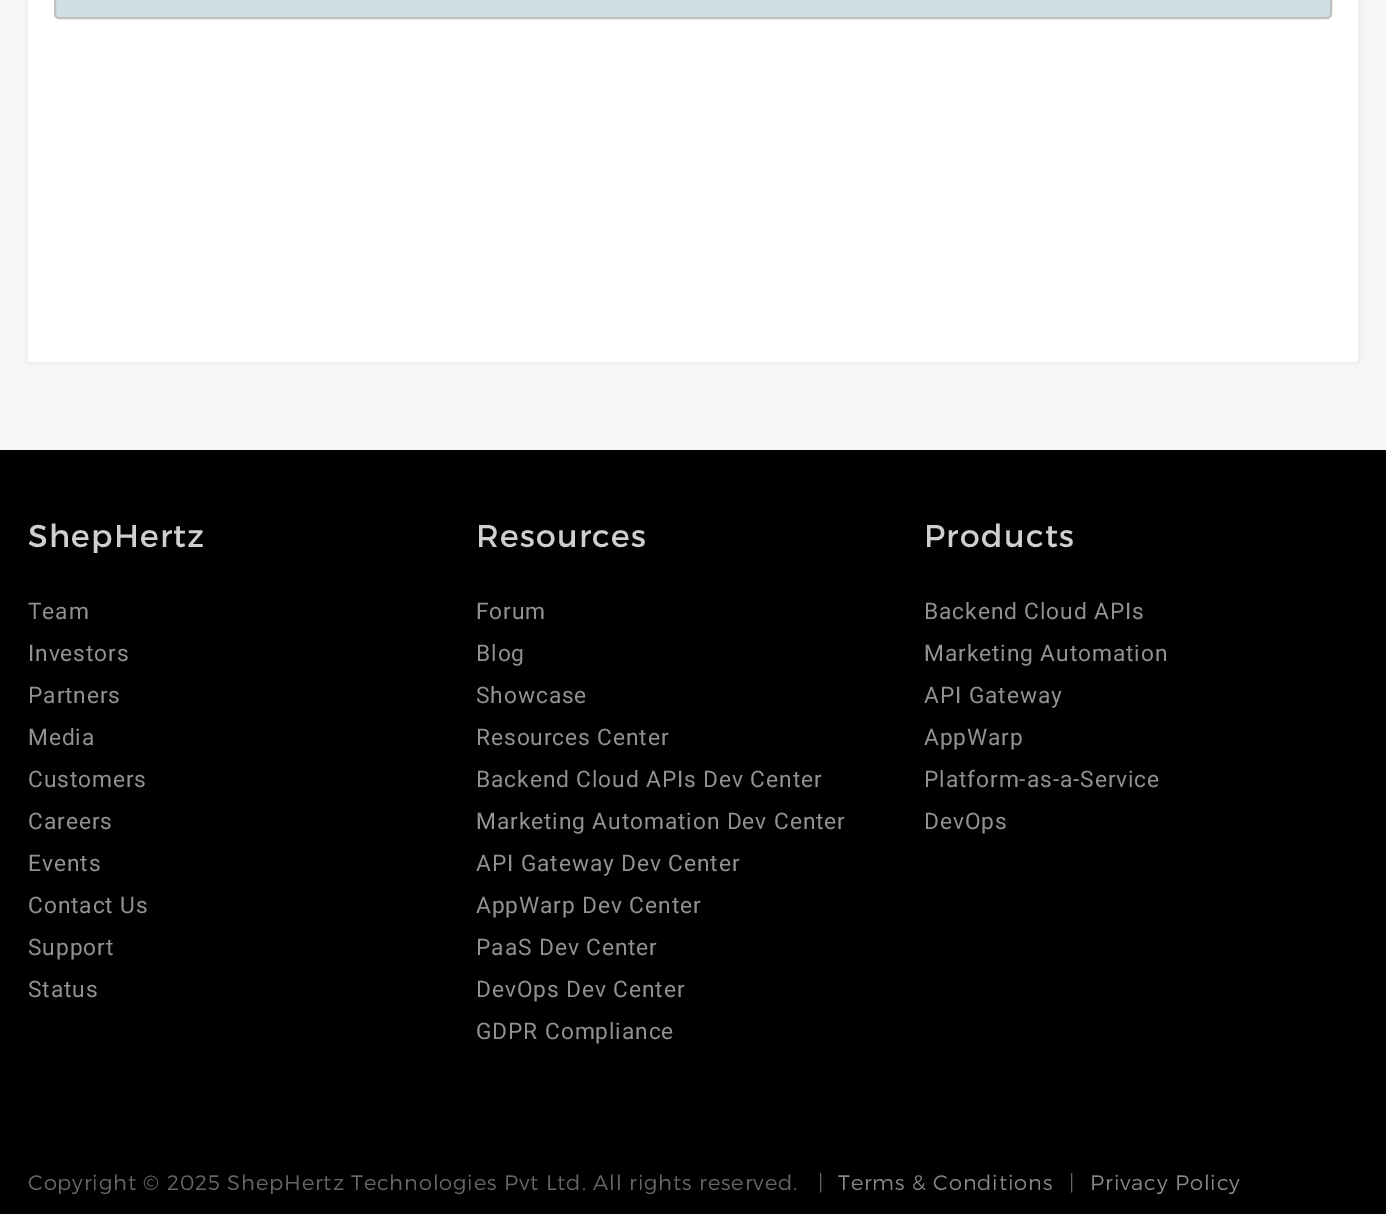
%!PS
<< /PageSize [1386 1214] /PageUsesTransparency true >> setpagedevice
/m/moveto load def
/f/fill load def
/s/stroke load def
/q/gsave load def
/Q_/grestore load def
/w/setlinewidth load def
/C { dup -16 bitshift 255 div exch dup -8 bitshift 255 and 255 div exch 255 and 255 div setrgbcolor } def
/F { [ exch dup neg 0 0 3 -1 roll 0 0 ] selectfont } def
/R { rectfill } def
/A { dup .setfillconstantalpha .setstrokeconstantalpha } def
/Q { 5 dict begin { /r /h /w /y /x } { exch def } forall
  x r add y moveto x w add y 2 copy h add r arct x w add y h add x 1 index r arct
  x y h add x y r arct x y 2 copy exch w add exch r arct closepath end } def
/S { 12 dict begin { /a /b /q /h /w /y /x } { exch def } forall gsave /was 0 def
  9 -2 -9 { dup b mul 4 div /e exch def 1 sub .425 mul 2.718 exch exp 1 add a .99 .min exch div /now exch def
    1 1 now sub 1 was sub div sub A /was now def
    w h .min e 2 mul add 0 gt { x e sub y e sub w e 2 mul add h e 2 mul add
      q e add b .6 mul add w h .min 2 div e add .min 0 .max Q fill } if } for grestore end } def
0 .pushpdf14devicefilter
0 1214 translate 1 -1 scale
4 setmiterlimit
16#F6F6F6 C
0 0 1386 1214 R
16#000000 C
28 -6 1330 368 0 2 .1 S
16#FFFFFF C
28 0 1330 362 R
16#D0DFE4 C
55 -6 1276 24 4 Q q f Q_
16#C1C1C1 C
2 w
s
16#000000 C
0 450 1386 764 R
/Montserrat-Regular 31.5 F
16#CFCFCF C
28 547 m 1.25 0 (ShepHertz) ashow
/Roboto-Regular 22.75 F
16#919191 C
28 619 m .9 0 (Team) ashow
28 661 m .9 0 (Investors) ashow
28 703 m .9 0 (Partners) ashow
28 745 m .9 0 (Media) ashow
28 787 m .9 0 (Customers) ashow
28 829 m .9 0 (Careers) ashow
28 871 m .9 0 (Events) ashow
28 913 m .9 0 (Contact Us) ashow
28 955 m .9 0 (Support) ashow
28 997 m .9 0 (Status) ashow
/Montserrat-Regular 31.5 F
16#CFCFCF C
476 547 m 1.25 0 (Resources) ashow
/Roboto-Regular 22.75 F
16#919191 C
476 619 m .9 0 (Forum) ashow
476 661 m .9 0 (Blog) ashow
476 703 m .9 0 (Showcase) ashow
476 745 m .9 0 (Resources Center) ashow
476 787 m .9 0 (Backend Cloud APIs Dev Center) ashow
476 829 m .9 0 (Marketing Automation Dev Center) ashow
476 871 m .9 0 (API Gateway Dev Center) ashow
476 913 m .9 0 (AppWarp Dev Center) ashow
476 955 m .9 0 (PaaS Dev Center) ashow
476 997 m .9 0 (DevOps Dev Center) ashow
476 1039 m .9 0 (GDPR Compliance) ashow
/Montserrat-Regular 31.5 F
16#CFCFCF C
924 547 m 1.25 0 (Products) ashow
/Roboto-Regular 22.75 F
16#919191 C
924 619 m .9 0 (Backend Cloud APIs) ashow
924 661 m .9 0 (Marketing Automation) ashow
924 703 m .9 0 (API Gateway) ashow
924 745 m .9 0 (AppWarp) ashow
924 787 m .9 0 (Platform-as-a-Service) ashow
924 829 m .9 0 (DevOps) ashow
/Montserrat-Light 21 F
16#666666 C
28 1190 m .85 0 (Copyright © 2025 ShepHertz Technologies Pvt Ltd. All rights reserved.   |) ashow
16#878787 C
838 1190 m .85 0 (Terms & Conditions) ashow
16#666666 C
1069 1190 m .85 0 (|) ashow
16#878787 C
1090 1190 m .85 0 (Privacy Policy) ashow
.poppdf14devicefilter showpage
